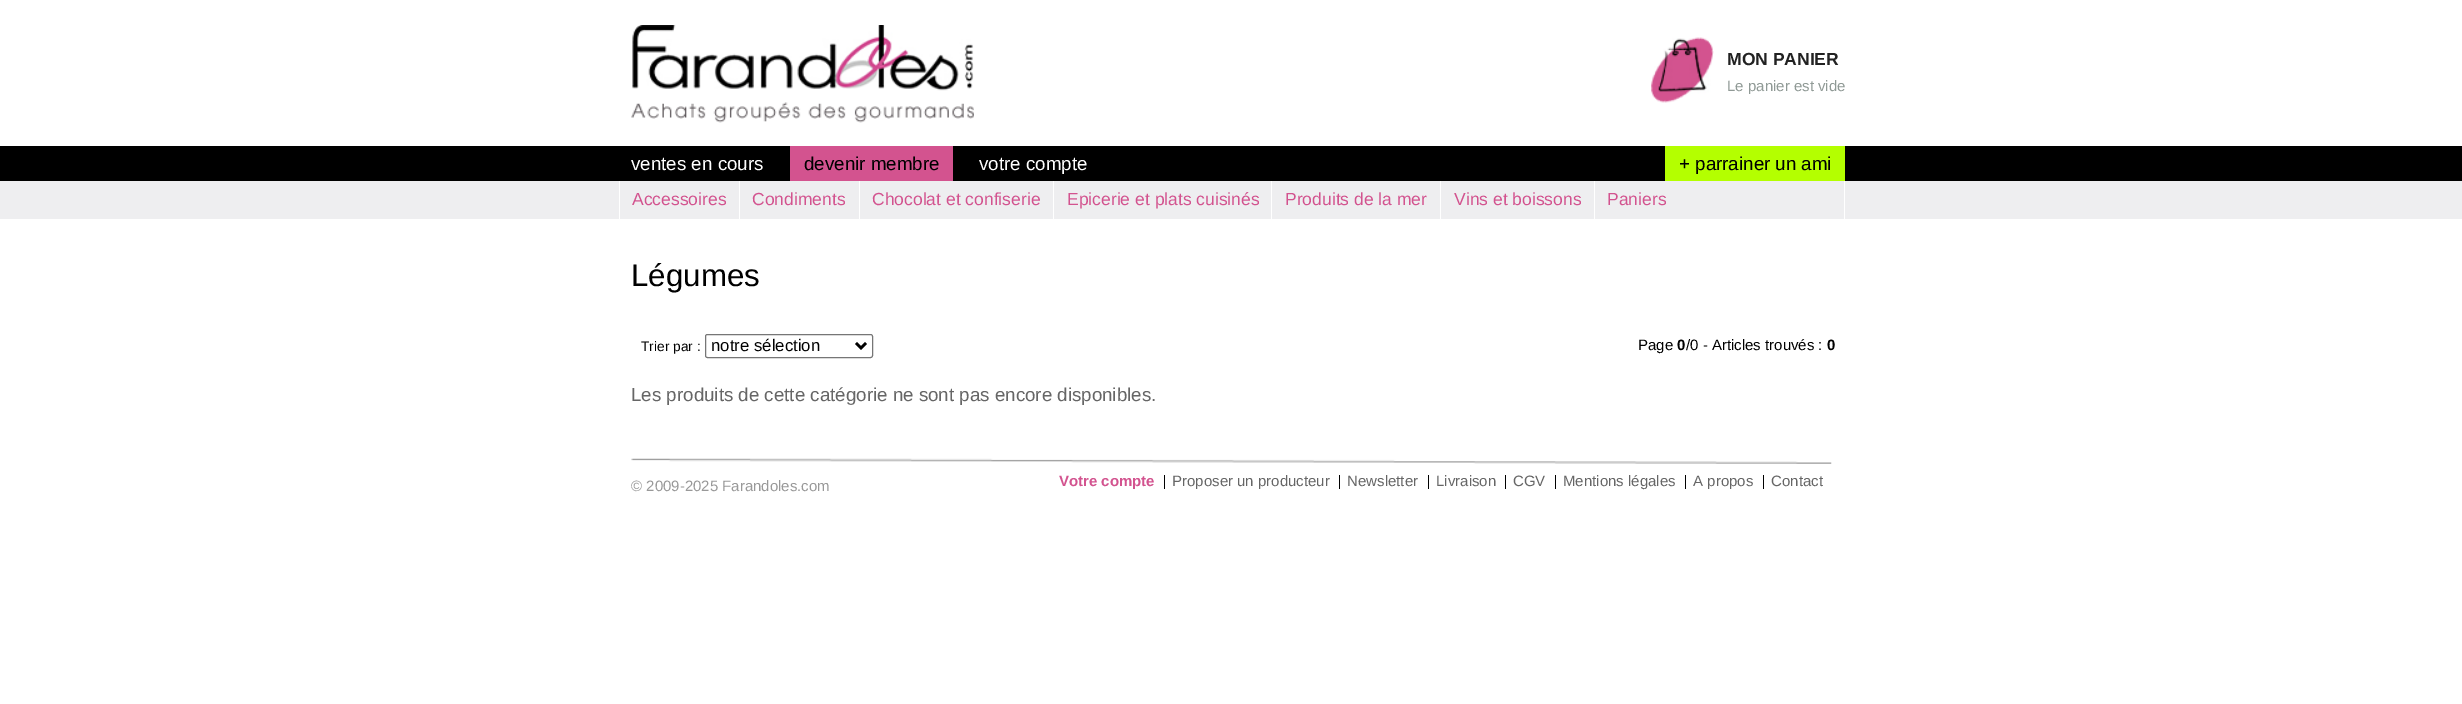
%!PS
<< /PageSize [2462 704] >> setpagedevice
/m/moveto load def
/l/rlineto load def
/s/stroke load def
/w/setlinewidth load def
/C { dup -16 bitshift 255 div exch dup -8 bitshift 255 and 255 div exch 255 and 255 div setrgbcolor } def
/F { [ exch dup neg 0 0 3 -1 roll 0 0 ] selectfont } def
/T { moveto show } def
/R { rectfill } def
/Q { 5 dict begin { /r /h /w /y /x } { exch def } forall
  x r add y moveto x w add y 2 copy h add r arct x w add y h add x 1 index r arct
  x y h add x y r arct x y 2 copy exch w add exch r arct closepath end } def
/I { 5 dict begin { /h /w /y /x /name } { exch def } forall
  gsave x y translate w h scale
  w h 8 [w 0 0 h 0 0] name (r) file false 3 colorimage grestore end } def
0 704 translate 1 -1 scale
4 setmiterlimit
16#FFFFFF C
0 0 2462 704 R
(1.rgb) 631 25 343 98 I
(2.rgb) 1651 37 63 66 I
/LiberationSans-Bold 17.5 F
16#222222 C
(MON PANIER) 1727 65 T
/LiberationSans-Regular 15 F
16#909A96 C
(Le panier est vide) 1727 91 T
16#000000 C
0 146 2462 35 R
/LiberationSans-Regular 18.75 F
16#FFFFFF C
(ventes en cours) 631 170 T
16#D3538F C
790 146 163 35 R
16#000000 C
(devenir membre) 804 170 T
16#FFFFFF C
(votre compte) 979 170 T
16#B4FF00 C
1665 146 180 35 R
16#000000 C
(+ parrainer un ami) 1679 170 T
16#EEEEF0 C
0 181 2462 38 R
16#FFFFFF C
1844 181 1 38 R
619 181 1 38 R
/LiberationSans-Regular 17.5 F
16#D3538F C
(Accessoires) 632 205 T
16#FFFFFF C
739 181 1 38 R
16#D3538F C
(Condiments) 752 205 T
16#FFFFFF C
859 181 1 38 R
16#D3538F C
(Chocolat et confiserie) 872 205 T
16#FFFFFF C
1053 181 1 38 R
16#D3538F C
(Epicerie et plats cuisinés) 1067 205 T
16#FFFFFF C
1271 181 1 38 R
16#D3538F C
(Produits de la mer) 1285 205 T
16#FFFFFF C
1440 181 1 38 R
16#D3538F C
(Vins et boissons) 1454 205 T
16#FFFFFF C
1594 181 1 38 R
16#D3538F C
(Paniers) 1607 205 T
/LiberationSans-Regular 31.25 F
16#000000 C
(Légumes) 631 286 T
/LiberationSans-Regular 13.75 F
(Trier par :) 641 351 T
16#767676 C
705.5 334.5 167 23 2 Q s
16#000000 C
2.5 w
856 343 m 5 5 l 5 -5 l s
/LiberationSans-Regular 16.75 F
(notre sélection) 711 351 T
/LiberationSans-Regular 15 F
(Page) 1638 350 T
/LiberationSans-Bold 15 F
(0) 1677 350 T
/LiberationSans-Regular 15 F
(/0 - Articles trouvés :) 1686 350 T
/LiberationSans-Bold 15 F
(0) 1827 350 T
/LiberationSans-Regular 18.75 F
16#666666 C
(Les produits de cette catégorie ne sont pas encore disponibles.) 631 401 T
(3.rgb) 631 458 1201 6 I
/LiberationSans-Regular 15 F
16#999999 C
(© 2009-2025 Farandoles.com) 631 491 T
16#000000 C
1164 475 1 14 R
/LiberationSans-Bold 15 F
16#D3538F C
(Votre compte) 1059 486 T
16#000000 C
1339 475 1 14 R
/LiberationSans-Regular 15 F
16#666666 C
(Proposer un producteur) 1172 486 T
16#000000 C
1428 475 1 14 R
16#666666 C
(Newsletter) 1347 486 T
16#000000 C
1505 475 1 14 R
16#666666 C
(Livraison) 1436 486 T
16#000000 C
1555 475 1 14 R
16#666666 C
(CGV) 1513 486 T
16#000000 C
1685 475 1 14 R
16#666666 C
(Mentions légales) 1563 486 T
16#000000 C
1763 475 1 14 R
16#666666 C
(A propos) 1693 486 T
(Contact) 1771 486 T
showpage
